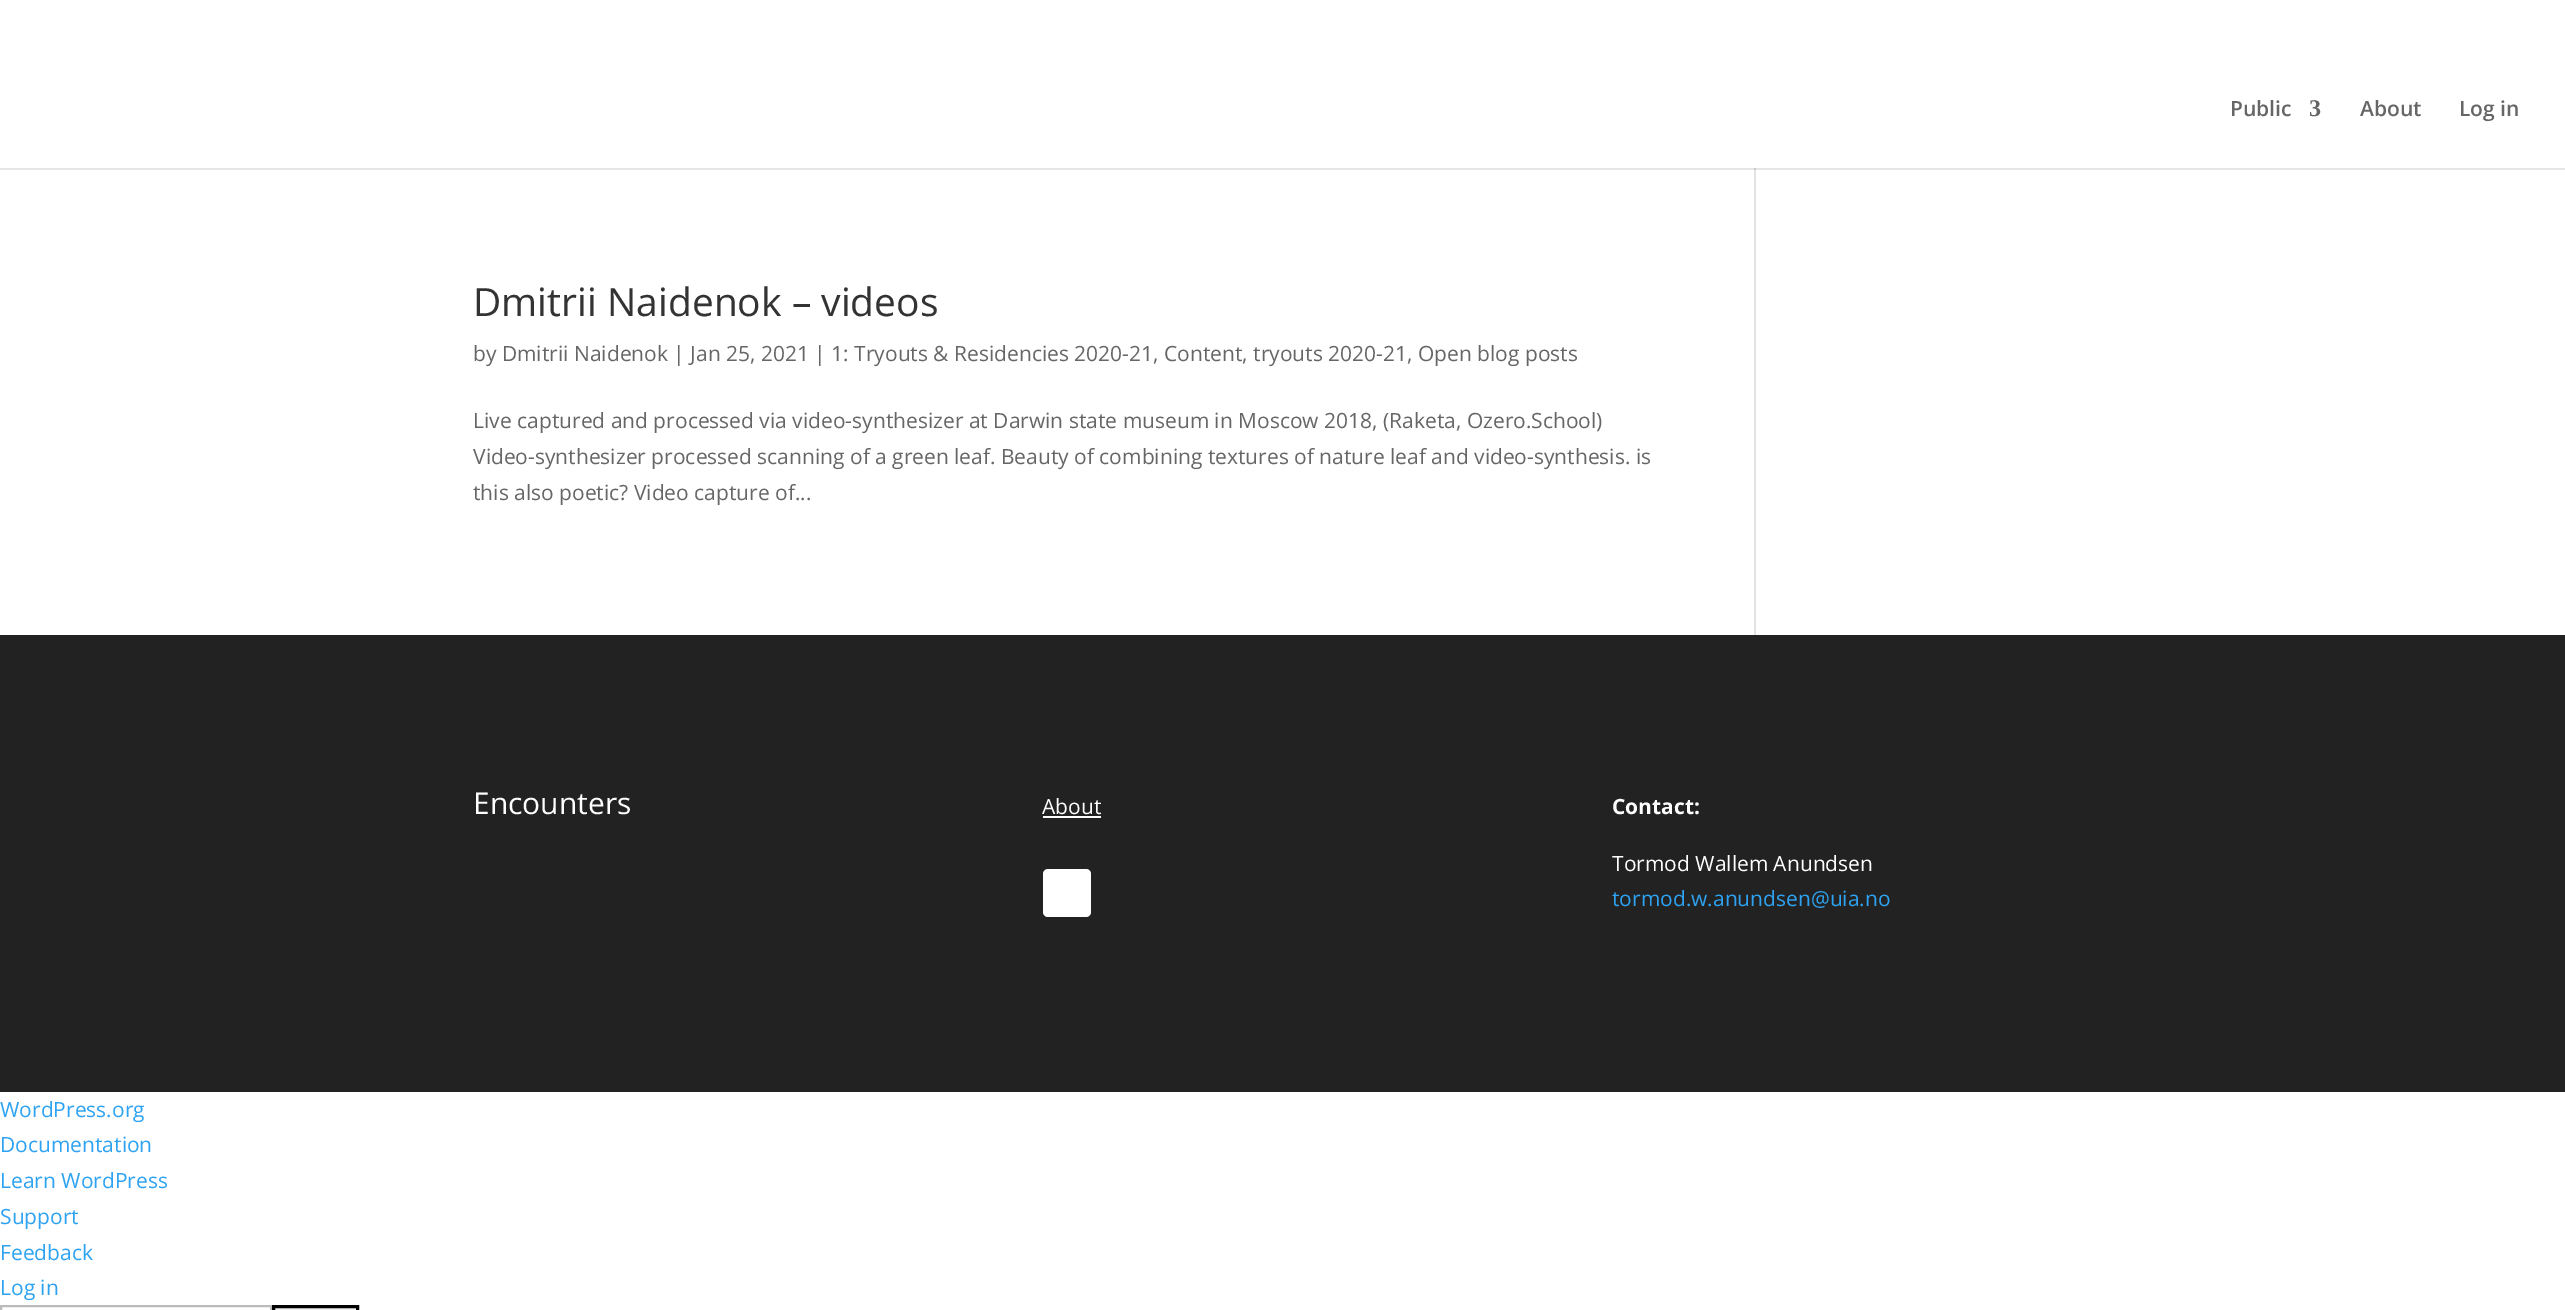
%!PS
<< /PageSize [2565 1310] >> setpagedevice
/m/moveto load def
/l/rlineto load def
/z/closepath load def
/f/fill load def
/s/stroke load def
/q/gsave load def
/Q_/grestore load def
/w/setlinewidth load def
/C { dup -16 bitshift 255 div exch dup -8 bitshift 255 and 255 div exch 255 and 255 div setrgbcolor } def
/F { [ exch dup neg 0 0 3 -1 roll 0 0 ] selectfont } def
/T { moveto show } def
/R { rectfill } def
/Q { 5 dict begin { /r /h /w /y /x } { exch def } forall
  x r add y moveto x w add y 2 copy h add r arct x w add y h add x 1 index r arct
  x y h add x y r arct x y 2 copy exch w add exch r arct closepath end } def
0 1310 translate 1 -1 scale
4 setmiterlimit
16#FFFFFF C
0 0 2565 1310 R
16#E6E6E6 C
0 168 2565 2 R
/OpenSans-SemiBold 21 F
16#666666 C
(Public) 2230 116 T
/LiberationSerif-Bold 24 F
(3) 2309 116 T
/OpenSans-SemiBold 21 F
(About) 2360 116 T
(Log in) 2459 116 T
/OpenSans-Regular 39 F
16#333333 C
(Dmitrii Naidenok – videos) 473 316 T
/OpenSans-Regular 21 F
16#666666 C
(by Dmitrii Naidenok | Jan 25, 2021 | 1: Tryouts & Residencies 2020-21, Content, tryouts 2020-21, Open blog posts) 473 361 T
(Live captured and processed via video-synthesizer at Darwin state museum in Moscow 2018, \(Raketa, Ozero.School\)) 473 428 T
(Video-synthesizer processed scanning of a green leaf. Beauty of combining textures of nature leaf and video-synthesis. is) 473 464 T
(this also poetic? Video capture of...) 473 500 T
16#E2E2E2 C
1754 170 2 465 R
16#CBCBCB C
1754 168 2 2 R
16#222222 C
0 635 2565 457 R
/OpenSans-Regular 30 F
16#FFFFFF C
(Encounters) 473 814 T
/OpenSans-Regular 21 F
(About) 1042 814 T
1043 816 58 2 R
1043 869 48 48 5 Q f
/OpenSans-Bold 21 F
(Contact:) 1612 814 T
/OpenSans-Regular 21 F
(Tormod Wallem Anundsen) 1612 871 T
16#2EA3F2 C
(tormod.w.anundsen@uia.no) 1612 906 T
(WordPress.org) 0 1117 T
(Documentation) 0 1152 T
(Learn WordPress) 0 1188 T
(Support) 0 1224 T
(Feedback) 0 1260 T
(Log in) 0 1295 T
16#BBBBBB C
2 w
1 1306 270 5 rectstroke
16#EFEFEF C
273.5 1306.5 m 84 0 l 0 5 l -84 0 l z q f Q_
16#000000 C
3 w
s
showpage
